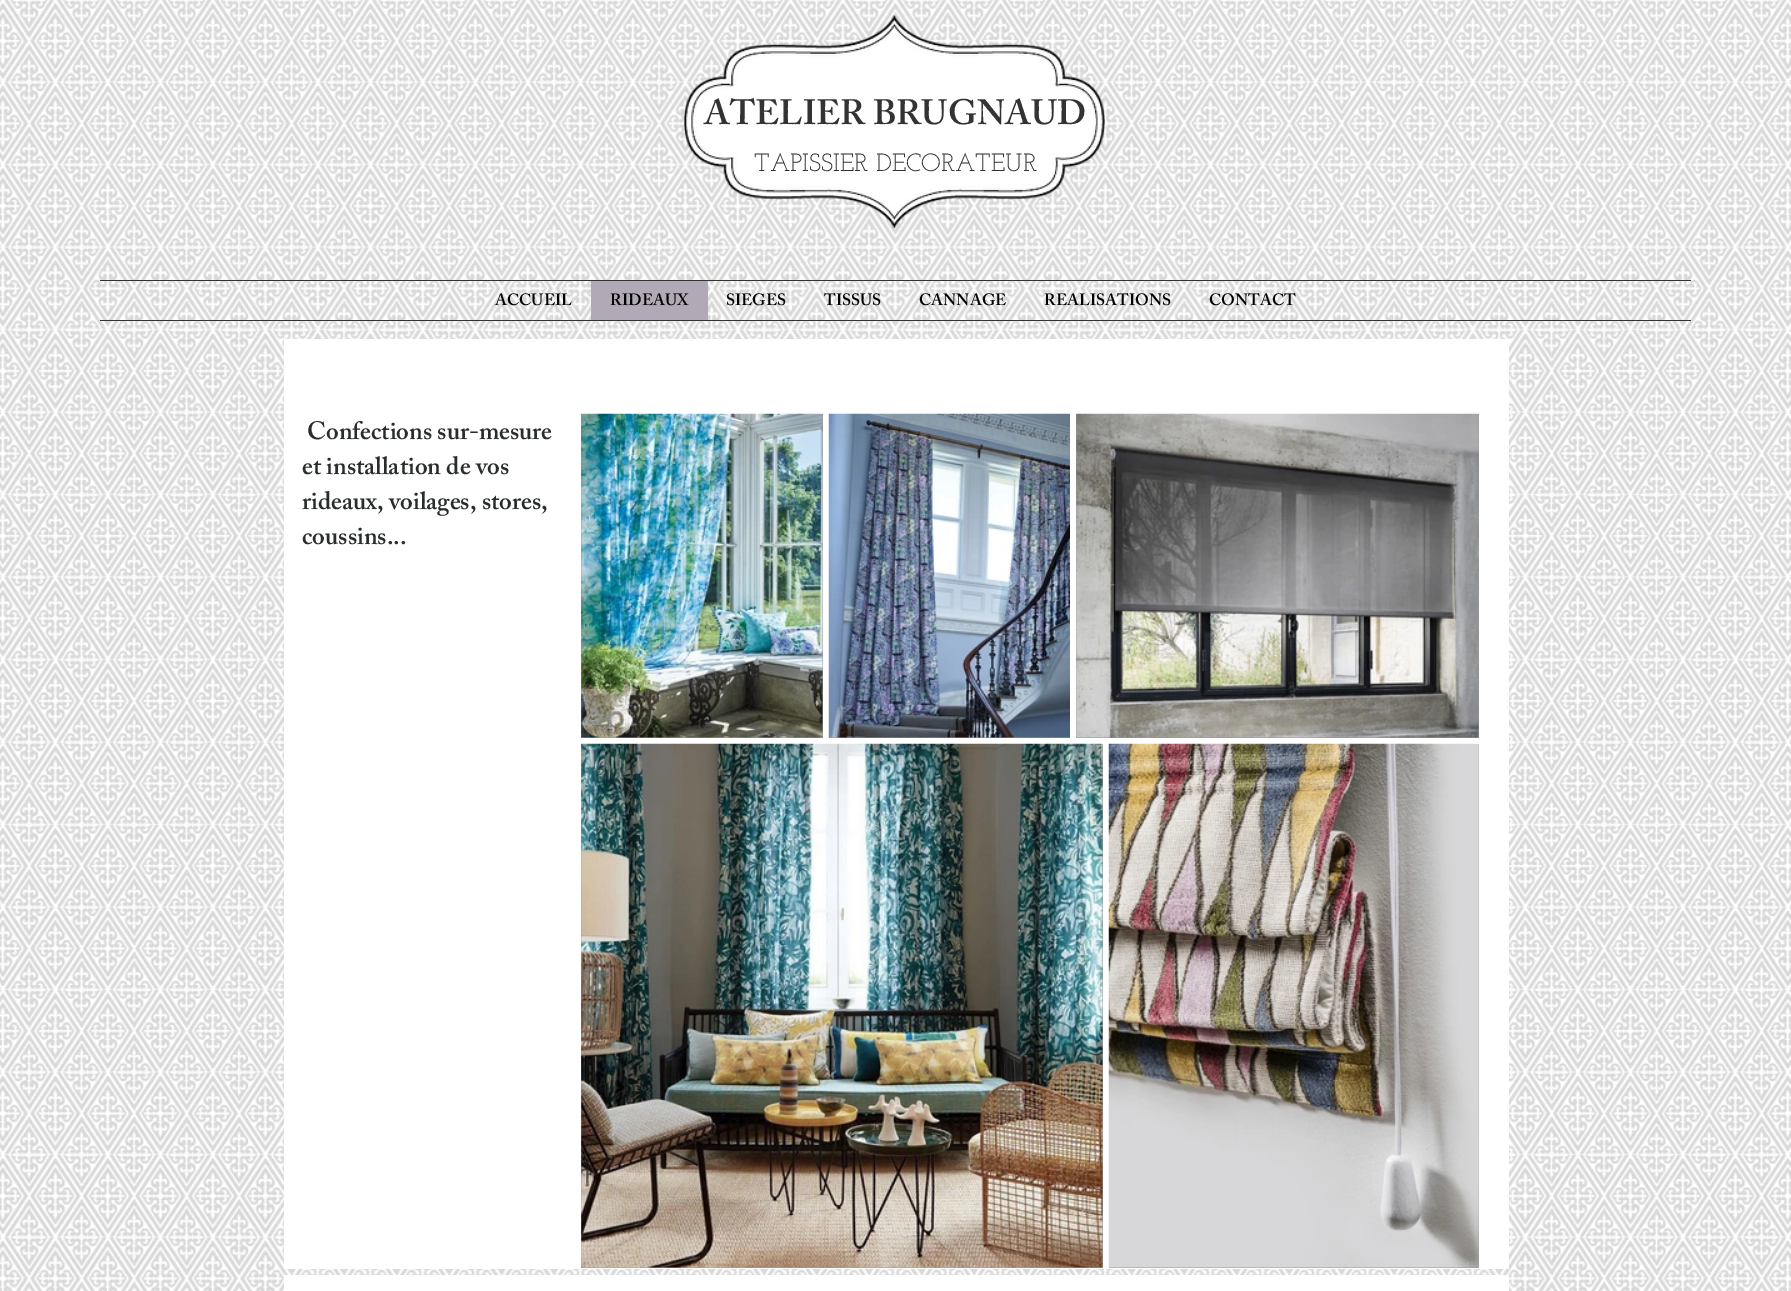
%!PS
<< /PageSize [1791 1291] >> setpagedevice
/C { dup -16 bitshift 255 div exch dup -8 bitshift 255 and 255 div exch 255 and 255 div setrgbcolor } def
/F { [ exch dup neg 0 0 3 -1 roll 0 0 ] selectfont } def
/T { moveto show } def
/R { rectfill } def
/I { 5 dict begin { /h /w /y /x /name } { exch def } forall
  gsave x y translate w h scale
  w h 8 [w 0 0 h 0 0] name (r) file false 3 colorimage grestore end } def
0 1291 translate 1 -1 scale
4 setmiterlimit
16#FFFFFF C
0 0 1791 1291 R
(1.rgb) 0 0 1791 1291 I
(2.rgb) 683 15 422 214 I
/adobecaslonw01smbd-SemiBold 35 F
16#333333 C
(ATELIER BRUGNAUD) 704 124 T
/JosefinSlab-Regular 25 F
(TAPISSIER DECORATEUR) 754 171 T
100 280 1591 1 R
100 320 1591 1 R
/adobecaslonw01smbd-SemiBold 16.25 F
16#000000 C
(ACCUEIL) 495 305 T
16#B1A9B5 C
591 281 117 39 R
16#000000 C
(RIDEAUX) 610 305 T
(SIEGES) 726 305 T
(TISSUS) 824 305 T
(CANNAGE) 919 305 T
(REALISATIONS) 1044 305 T
(CONTACT) 1209 305 T
16#FFFFFF C
284 339 1225 930 R
/adobecaslonw01smbd-SemiBold 25 F
16#292C2D C
(Confections sur-mesure) 307 439 T
(et installation de vos) 302 474 T
(rideaux, voilages, stores,) 302 509 T
(coussins...) 302 544 T
16#999999 C
581 414 242 324 R
(3.rgb) 581 413 242 325 I
829 737 241 1 R
(4.rgb) 828 413 242 325 I
1076 414 403 324 R
(5.rgb) 1076 413 403 325 I
581 744 522 524 R
(6.rgb) 581 743 522 525 I
1109 744 370 524 R
(7.rgb) 1108 743 371 525 I
16#FFFFFF C
284 1275 1225 16 R
showpage
